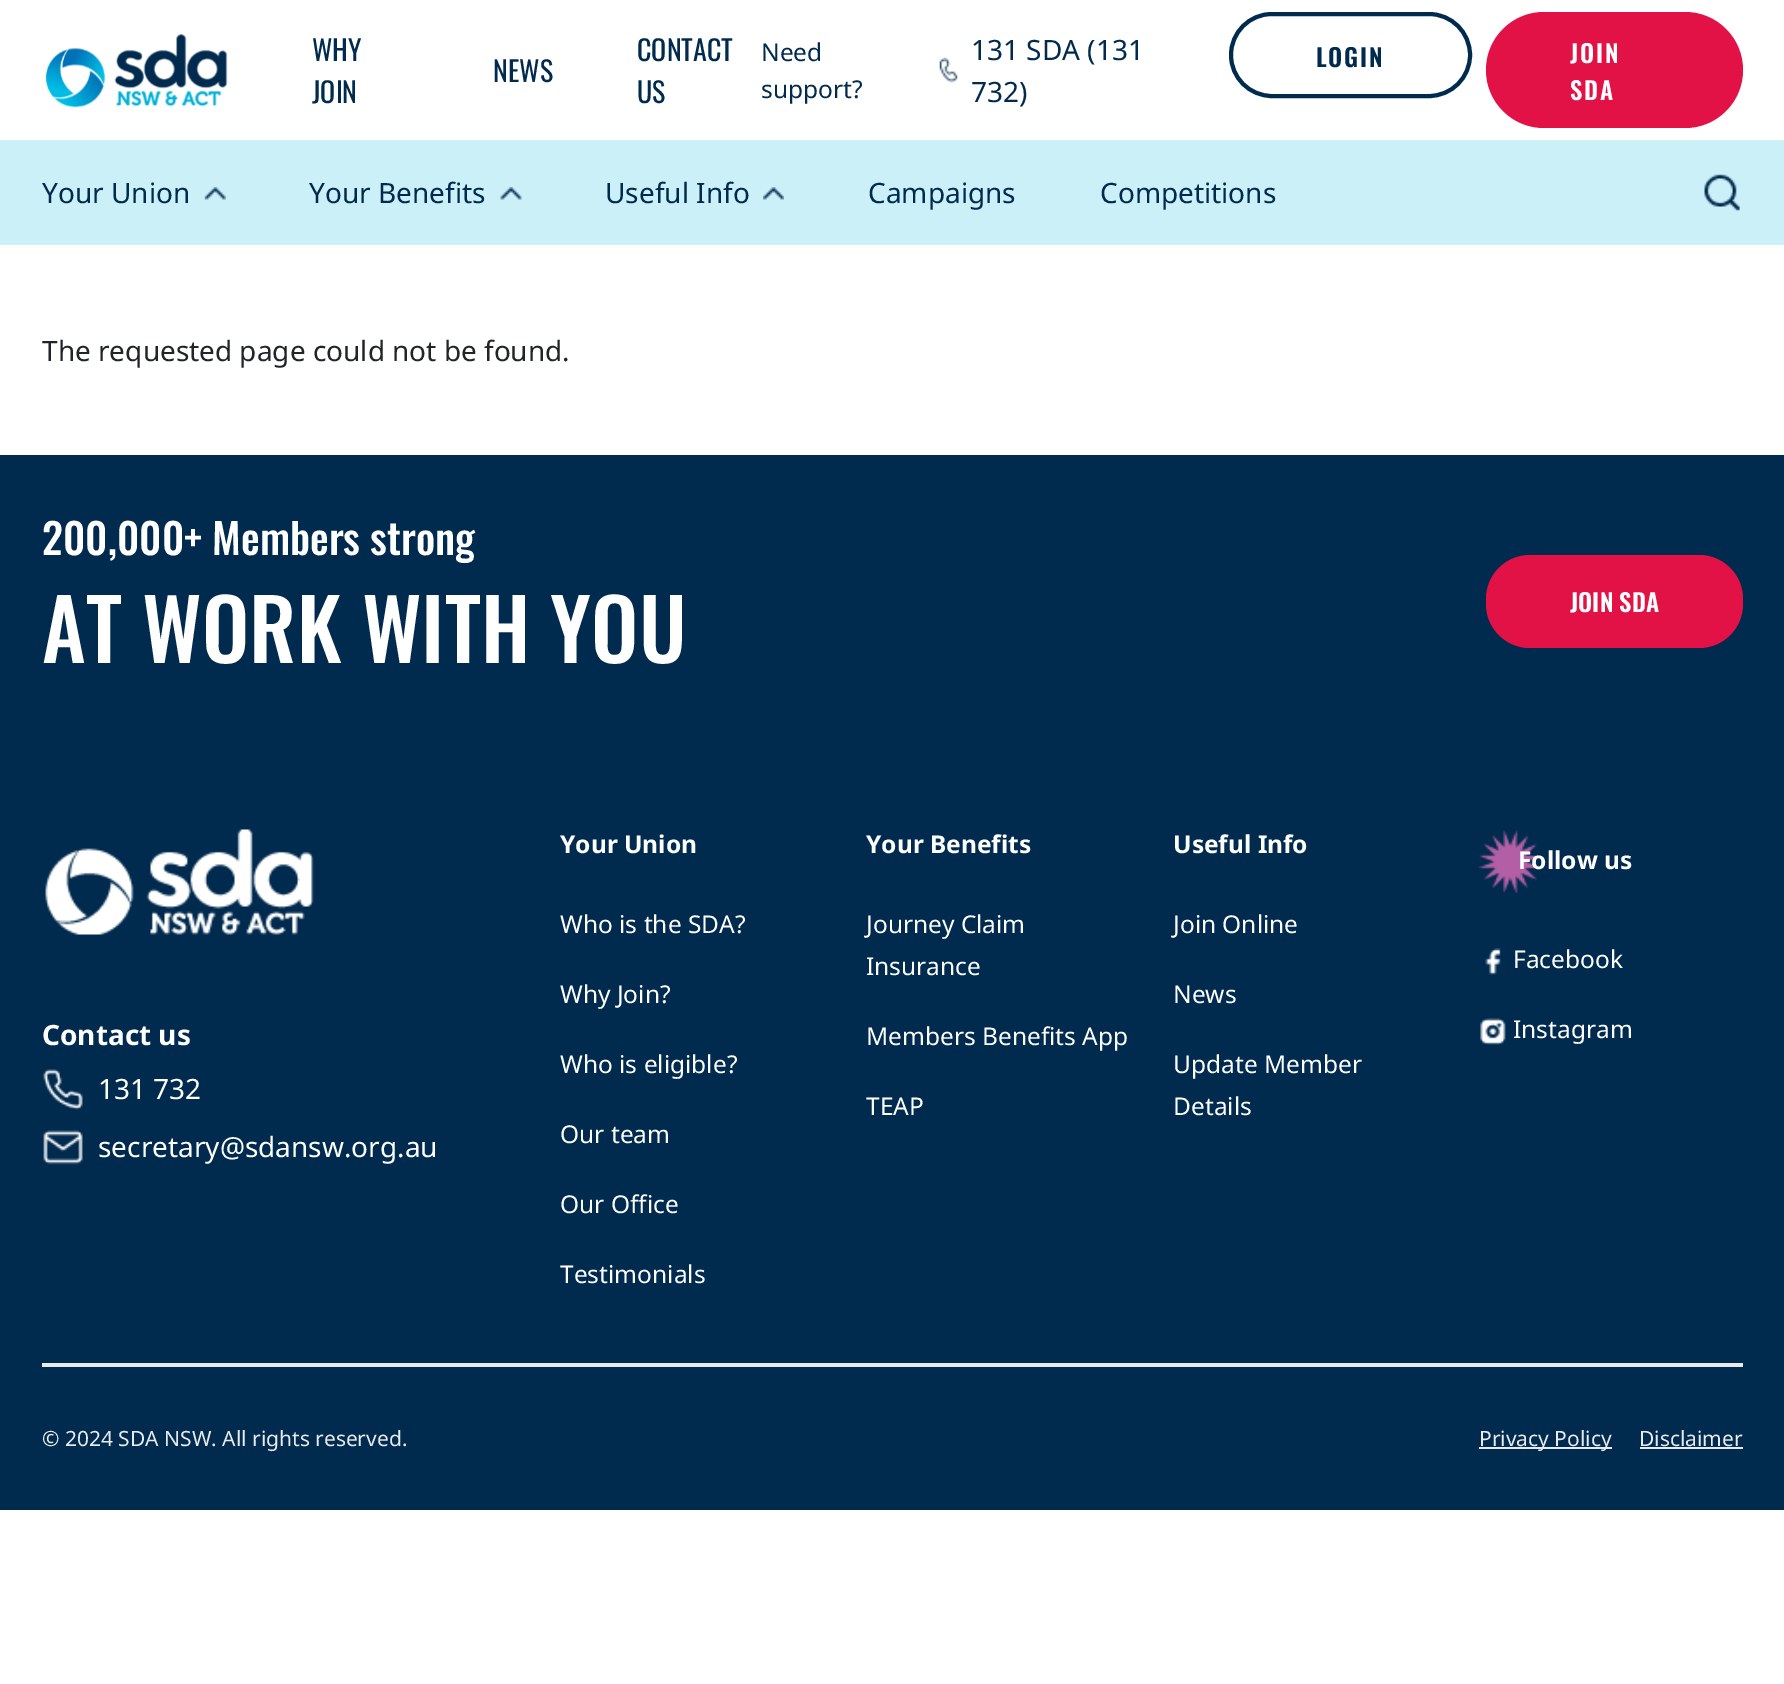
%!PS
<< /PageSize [1784 1684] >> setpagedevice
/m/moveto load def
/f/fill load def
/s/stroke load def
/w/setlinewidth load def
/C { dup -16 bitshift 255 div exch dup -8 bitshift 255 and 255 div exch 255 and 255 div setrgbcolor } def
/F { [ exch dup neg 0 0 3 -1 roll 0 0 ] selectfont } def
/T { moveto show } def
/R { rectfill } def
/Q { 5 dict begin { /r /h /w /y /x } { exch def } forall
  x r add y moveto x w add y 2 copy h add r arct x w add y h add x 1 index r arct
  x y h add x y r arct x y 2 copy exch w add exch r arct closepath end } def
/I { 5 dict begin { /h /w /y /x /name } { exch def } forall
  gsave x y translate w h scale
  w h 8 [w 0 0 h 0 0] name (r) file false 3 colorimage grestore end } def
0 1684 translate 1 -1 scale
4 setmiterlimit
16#FFFFFF C
0 0 1784 1684 R
(1.rgb) 45 34 183 74 I
/Oswald-Regular 28 F
16#002A4E C
(WHY) 312 61 T
(JOIN) 312 103 T
(NEWS) 493 82 T
(CONTACT) 637 61 T
(US) 637 103 T
/NotoSans-Regular 24.5 F
(Need) 761 61 T
(support?) 761 98 T
(2.rgb) 939 57 19 26 I
/NotoSans-Regular 28 F
(131 SDA \(131) 971 60 T
(732\)) 971 102 T
4 w
1231 14 239 82 41 Q s
/Oswald-SemiBold 24.5 F
1316 67 m 1.75 0 (LOGIN) ashow
16#E21246 C
1486 12 257 116 58 Q f
16#FFFFFF C
1570 63 m 1.75 0 (JOIN) ashow
1570 100 m 1.75 0 (SDA) ashow
16#CCF0F8 C
0 140 1784 105 R
/NotoSans-Regular 28 F
16#002A4E C
(Your Union) 42 203 T
(3.rgb) 204 187 22 13 I
(Your Benefits) 309 203 T
(4.rgb) 500 187 22 13 I
(Useful Info) 605 203 T
(5.rgb) 763 187 21 13 I
(Campaigns) 868 203 T
(Competitions) 1100 203 T
(6.rgb) 1704 174 36 37 I
16#212529 C
(The requested page could not be found.) 42 361 T
16#002A4E C
0 455 1784 1055 R
/Oswald-Medium 42 F
16#FFFFFF C
(200,000+ Members strong) 42 555 T
/Oswald-Medium 84 F
(AT WORK WITH YOU) 42 663 T
16#E21246 C
1486 555 257 93 44 Q f
/Oswald-SemiBold 24.5 F
16#FFFFFF C
(JOIN SDA) 1570 612 T
(7.rgb) 45 829 269 106 I
/NotoSans-Bold 28 F
(Contact us) 42 1045 T
(8.rgb) 43 1069 40 41 I
/NotoSans-Regular 28 F
(131 732) 98 1099 T
(9.rgb) 43 1130 40 35 I
(secretary@sdansw.org.au) 98 1157 T
/NotoSans-Bold 24.5 F
(Your Union) 560 853 T
/NotoSans-Regular 24.5 F
(Who is the SDA?) 560 933 T
(Why Join?) 560 1003 T
(Who is eligible?) 560 1073 T
(Our team) 560 1143 T
(Our Office) 560 1213 T
(Testimonials) 560 1283 T
/NotoSans-Bold 24.5 F
(Your Benefits) 866 853 T
/NotoSans-Regular 24.5 F
(Journey Claim) 866 933 T
(Insurance) 866 975 T
(Members Benefits App) 866 1045 T
(TEAP) 866 1115 T
/NotoSans-Bold 24.5 F
(Useful Info) 1173 853 T
/NotoSans-Regular 24.5 F
(Join Online) 1173 933 T
(News) 1173 1003 T
(Update Member) 1173 1073 T
(Details) 1173 1115 T
(10.rgb) 1478 829 64 65 I
/NotoSans-Bold 24.5 F
(Follow us) 1518 869 T
(11.rgb) 1485 948 16 27 I
/NotoSans-Regular 24.5 F
(Facebook) 1513 968 T
(12.rgb) 1480 1018 26 27 I
(Instagram) 1513 1038 T
16#E8EAEB C
42 1363 1701 4 R
/NotoSans-Regular 21 F
(© 2024 SDA NSW. All rights reserved.) 42 1446 T
1479 1447 133 2 R
(Privacy Policy) 1479 1446 T
(Disclaimer) 1639 1446 T
1640 1447 103 2 R
showpage
